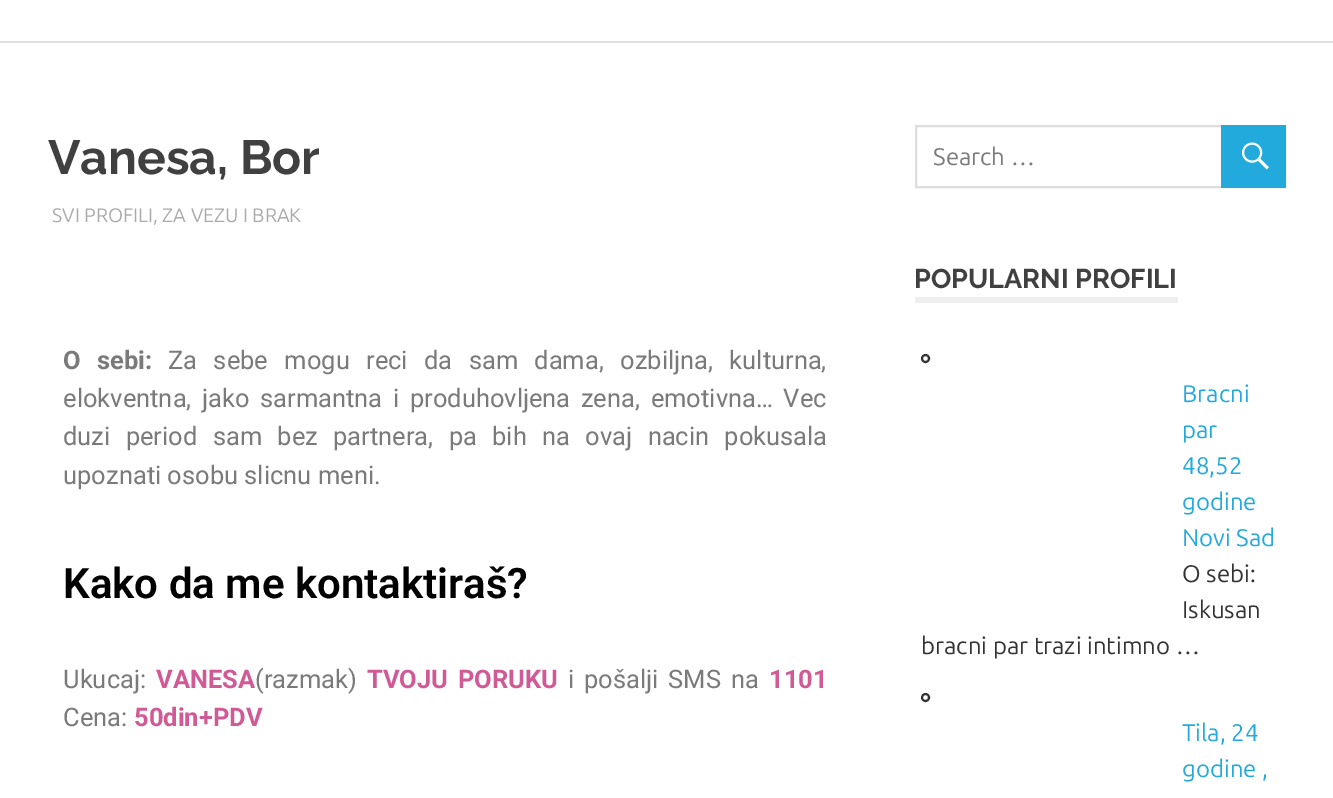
%!PS
<< /PageSize [1333 798] >> setpagedevice
/m/moveto load def
/s/stroke load def
/w/setlinewidth load def
/C { dup -16 bitshift 255 div exch dup -8 bitshift 255 and 255 div exch 255 and 255 div setrgbcolor } def
/F { [ exch dup neg 0 0 3 -1 roll 0 0 ] selectfont } def
/T { moveto show } def
/R { rectfill } def
/O { newpath 0 360 arc closepath } def
/I { 5 dict begin { /h /w /y /x /name } { exch def } forall
  gsave x y translate w h scale
  w h 8 [w 0 0 h 0 0] name (r) file false 3 colorimage grestore end } def
0 798 translate 1 -1 scale
4 setmiterlimit
16#FFFFFF C
0 0 1333 798 R
16#E0E0E0 C
0 41 1333 2 R
/Raleway-Bold 48 F
16#404040 C
(Vanesa, Bor) 48 174 T
/Ubuntu-Regular 19.5 F
16#AAAAAA C
(SVI PROFILI, ZA VEZU I BRAK) 52 222 T
/Roboto-Bold 25.5 F
16#7A7A7A C
63 369 m 10 0 32 (O sebi:) widthshow
/Roboto-Regular 25.5 F
168 369 m 10 0 32 (Za sebe mogu reci da sam dama, ozbiljna, kulturna,) widthshow
63 407 m 4.25 0 32 (elokventna, jako sarmantna i produhovljena zena, emotivna… Vec) widthshow
63 445 m 9 0 32 (duzi period sam bez partnera, pa bih na ovaj nacin pokusala) widthshow
(upoznati osobu slicnu meni.) 63 484 T
/Roboto-SemiBold 42 F
16#000000 C
(Kako da me kontaktiraš?) 63 598 T
/Roboto-Regular 25.5 F
16#7A7A7A C
(Ukucaj:) 63 688 T
/Roboto-Bold 25.5 F
16#D15A96 C
(VANESA) 156 688 T
/Roboto-Regular 25.5 F
16#7A7A7A C
(\(razmak\)) 255 688 T
/Roboto-Bold 25.5 F
16#D15A96 C
367 688 m 3.5 0 32 (TVOJU PORUKU) widthshow
/Roboto-Regular 25.5 F
16#7A7A7A C
568 688 m 3.5 0 32 (i pošalji SMS na) widthshow
/Roboto-Bold 25.5 F
16#D15A96 C
(1101) 769 688 T
/Roboto-Regular 25.5 F
16#7A7A7A C
(Cena:) 63 726 T
/Roboto-Bold 25.5 F
16#D15A96 C
(50din+PDV) 134 726 T
16#DDDDDD C
2 w
916 126 369 61 rectstroke
/Ubuntu-Regular 24 F
16#7A7A7A C
(Search …) 933 165 T
16#22AADD C
1221 125 65 63 R
(1.rgb) 1242 142 27 28 I
16#EEEEEE C
915 297 263 6 R
/Raleway-Bold 27 F
16#404040 C
(POPULARNI PROFILI) 914 288 T
16#333333 C
925.5 358.5 3.5 O s
/Ubuntu-Regular 24 F
16#22AADD C
(Bracni) 1182 402 T
(par) 1182 438 T
(48,52) 1182 474 T
(godine) 1182 510 T
(Novi Sad) 1182 546 T
16#333333 C
(O sebi:) 1182 582 T
(Iskusan) 1182 618 T
(bracni par trazi intimno …) 921 654 T
925.5 697.5 3.5 O s
16#22AADD C
(Tila, 24) 1182 741 T
(godine ,) 1182 777 T
showpage
